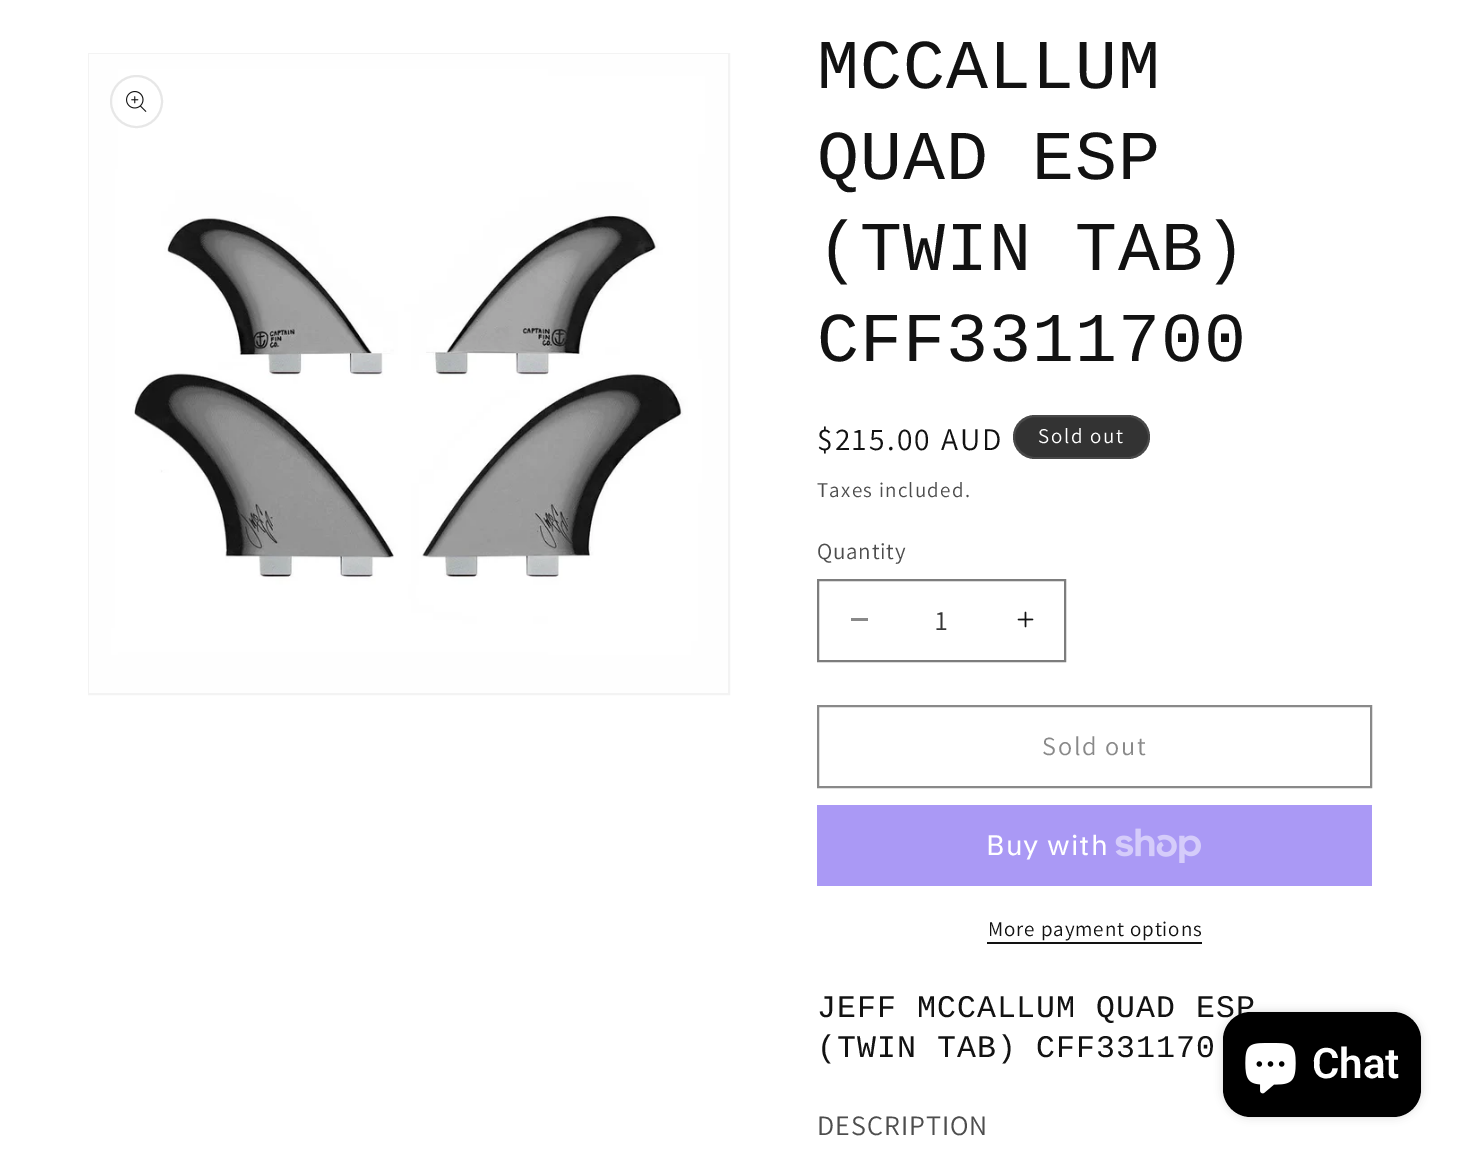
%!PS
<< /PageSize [1459 1152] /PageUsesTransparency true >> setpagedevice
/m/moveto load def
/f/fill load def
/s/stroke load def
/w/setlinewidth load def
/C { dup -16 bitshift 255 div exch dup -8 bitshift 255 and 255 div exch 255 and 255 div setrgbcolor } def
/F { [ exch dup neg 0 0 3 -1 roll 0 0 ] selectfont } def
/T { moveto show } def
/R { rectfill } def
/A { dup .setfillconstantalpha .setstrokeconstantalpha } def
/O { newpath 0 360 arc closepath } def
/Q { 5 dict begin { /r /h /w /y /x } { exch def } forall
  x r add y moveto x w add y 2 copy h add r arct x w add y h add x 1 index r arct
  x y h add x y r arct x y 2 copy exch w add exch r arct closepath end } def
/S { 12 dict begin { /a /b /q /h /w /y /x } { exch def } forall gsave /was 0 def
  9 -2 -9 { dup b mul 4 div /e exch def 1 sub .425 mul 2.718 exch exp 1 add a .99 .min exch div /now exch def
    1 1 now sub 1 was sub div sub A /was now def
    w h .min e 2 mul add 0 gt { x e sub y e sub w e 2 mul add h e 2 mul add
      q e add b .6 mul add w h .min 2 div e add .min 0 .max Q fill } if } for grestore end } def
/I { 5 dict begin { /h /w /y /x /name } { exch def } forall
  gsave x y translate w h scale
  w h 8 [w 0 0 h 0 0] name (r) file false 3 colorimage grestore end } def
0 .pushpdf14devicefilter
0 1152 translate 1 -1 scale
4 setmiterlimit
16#FFFFFF C
0 0 1459 1152 R
16#F3F3F3 C
2 w
89 54 640 640 rectstroke
(1.rgb) 89 54 639 639 I
16#E7E7E7 C
136.5 101.5 25.5 O s
(2.rgb) 126 91 21 21 I
/LiberationMono-Regular 70 F
16#121212 C
817 88 m 1.05 0 (MCCALLUM) ashow
817 179 m 1.05 0 (QUAD ESP) ashow
817 270 m 1.05 0 (\(TWIN TAB\)) ashow
817 361 m 1.05 0 (CFF3311700) ashow
/Assistant-Regular 31.5 F
817 450 m 2.25 0 ($215.00 AUD) ashow
16#333333 C
1013 415 137 44 22 Q f
0.1 A
16#FFFFFF C
1014 416 135 42 21 Q s
/Assistant-Regular 21 F
1 A
1038 443 m 1.75 0 (Sold out) ashow
16#4D4D4D C
817 497 m 1.25 0 (Taxes included.) ashow
/Assistant-Regular 23 F
817 559 m .75 0 (Quantity) ashow
16#898989 C
851 618 17 3 R
(3.rgb) 1017 611 17 17 I
16#7D7D7D C
818 580 247 81 rectstroke
/Assistant-Regular 28 F
16#363636 C
(1) 935 630 T
16#898989 C
818 706 553 81 rectstroke
/Assistant-Regular 26.25 F
1042 755 m 1.75 0 (Sold out) ashow
16#AA99F5 C
817 805 555 81 R
/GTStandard-Regular 28 F
16#FFFFFF C
986 855 m 1.05 0 (Buy with) ashow
(4.rgb) 1115 828 86 35 I
/Assistant-Regular 21 F
16#121212 C
988 936 m .9 0 (More payment options) ashow
987 942 215 2 R
/LiberationMono-Regular 31.5 F
817 1017 m 1.05 0 (JEFF MCCALLUM QUAD ESP) ashow
817 1057 m 1.05 0 (\(TWIN TAB\) CFF331170) ashow
/Assistant-Regular 28 F
16#4D4D4D C
817 1135 m 1.05 0 (DESCRIPTION) ashow
16#000000 C
1223 1012 198 105 28 4.5 .15 S
1223 1012 198 105 28 Q f
(5.rgb) 1245 1043 51 51 I
/Roboto-SemiBold 42 F
16#FFFFFF C
(Chat) 1312 1078 T
.poppdf14devicefilter showpage
